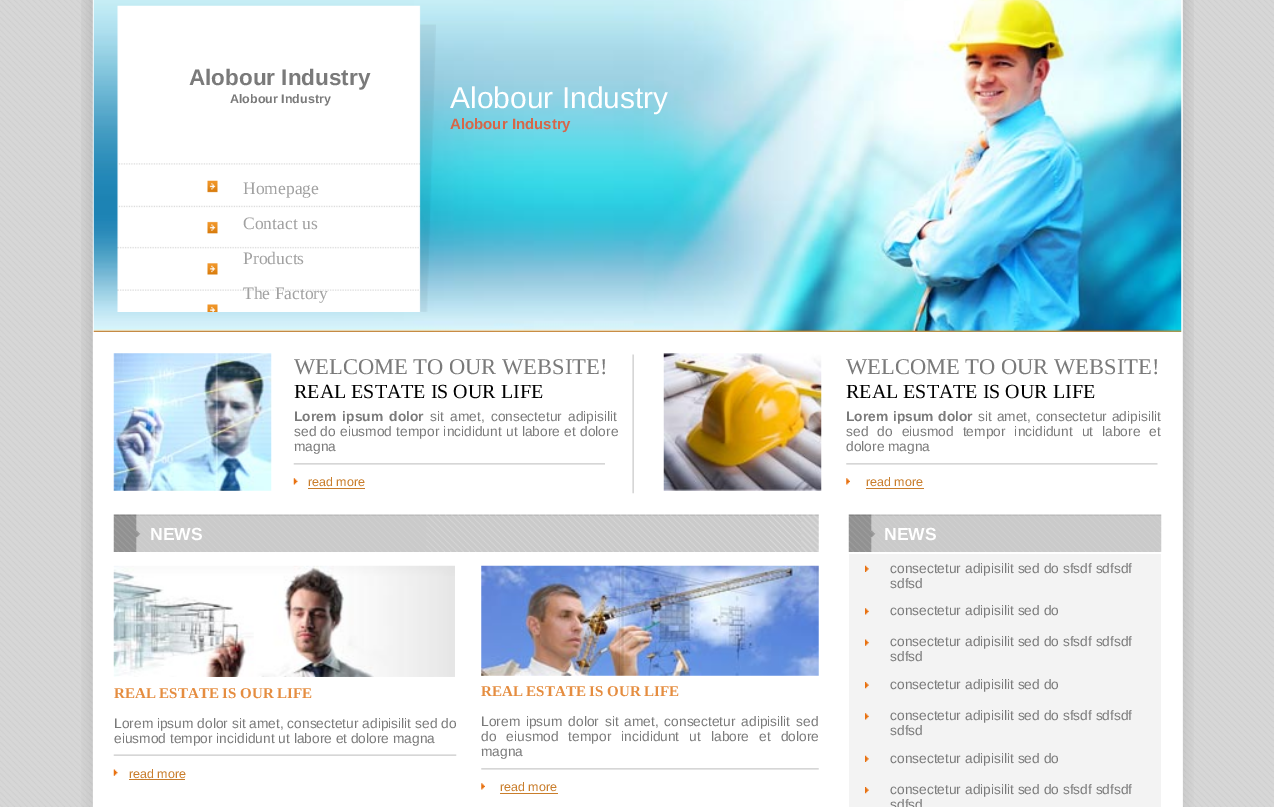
%!PS
<< /PageSize [1274 807] >> setpagedevice
/m/moveto load def
/C { dup -16 bitshift 255 div exch dup -8 bitshift 255 and 255 div exch 255 and 255 div setrgbcolor } def
/F { [ exch dup neg 0 0 3 -1 roll 0 0 ] selectfont } def
/T { moveto show } def
/R { rectfill } def
/I { 5 dict begin { /h /w /y /x /name } { exch def } forall
  gsave x y translate w h scale
  w h 8 [w 0 0 h 0 0] name (r) file false 3 colorimage grestore end } def
0 807 translate 1 -1 scale
4 setmiterlimit
16#FFFFFF C
0 0 1274 807 R
(1.rgb) 0 0 1274 807 I
(2.rgb) 81 0 12 807 I
93 0 1090 807 R
(3.rgb) 93 0 1089 332 I
(4.rgb) 117 5 319 307 I
/LiberationSans-Bold 22.5 F
16#7A7A7A C
(Alobour Industry) 189 85 T
/LiberationSans-Bold 12.5 F
(Alobour Industry) 230 103 T
/LiberationSerif-Regular 17.5 F
16#A1A1A1 C
(Homepage) 243 194 T
(Contact us) 243 229 T
(Products) 243 264 T
(The Factory) 243 299 T
/LiberationSans-Regular 30 F
16#FFFFFF C
(Alobour Industry) 450 108 T
/LiberationSans-Bold 15 F
16#D66649 C
(Alobour Industry) 450 129 T
(5.rgb) 113 353 159 138 I
/LiberationSerif-Regular 22.5 F
16#7A7A7A C
(WELCOME TO OUR WEBSITE!) 294 374 T
/LiberationSerif-Regular 20 F
16#000000 C
(REAL ESTATE IS OUR LIFE) 294 398 T
/LiberationSans-Bold 13.75 F
16#7A7A7A C
294 421 m 2.5 0 32 (Lorem ipsum dolor) widthshow
/LiberationSans-Regular 13.75 F
430 421 m 2.5 0 32 (sit amet, consectetur adipisilit) widthshow
294 436 m .5 0 32 (sed do eiusmod tempor incididunt ut labore et dolore) widthshow
(magna) 294 451 T
(6.rgb) 293 463 312 2 I
(7.rgb) 293 478 5 7 I
/LiberationSans-Regular 12.5 F
16#C97D2B C
(read more) 308 486 T
308 488 57 1 R
(8.rgb) 632 354 2 140 I
(9.rgb) 663 353 159 138 I
/LiberationSerif-Regular 22.5 F
16#7A7A7A C
(WELCOME TO OUR WEBSITE!) 846 374 T
/LiberationSerif-Regular 20 F
16#000000 C
(REAL ESTATE IS OUR LIFE) 846 398 T
/LiberationSans-Bold 13.75 F
16#7A7A7A C
846 421 m 1 0 32 (Lorem ipsum dolor) widthshow
/LiberationSans-Regular 13.75 F
978 421 m 1 0 32 (sit amet, consectetur adipisilit) widthshow
846 436 m 5.25 0 32 (sed do eiusmod tempor incididunt ut labore et) widthshow
(dolore magna) 846 451 T
(10.rgb) 846 463 312 2 I
(11.rgb) 846 478 4 7 I
/LiberationSans-Regular 12.5 F
16#C97D2B C
(read more) 866 486 T
866 488 58 1 R
(12.rgb) 113 514 706 38 I
/LiberationSans-Bold 17.5 F
16#FFFFFF C
(NEWS) 150 540 T
(13.rgb) 113 565 342 112 I
/LiberationSerif-Bold 15 F
16#E58D40 C
(REAL ESTATE IS OUR LIFE) 114 698 T
/LiberationSans-Regular 13.75 F
16#7A7A7A C
(Lorem ipsum dolor sit amet, consectetur adipisilit sed do) 114 728 T
(eiusmod tempor incididunt ut labore et dolore magna) 114 743 T
(14.rgb) 113 754 344 2 I
(15.rgb) 113 769 5 7 I
/LiberationSans-Regular 12.5 F
16#C97D2B C
(read more) 129 778 T
129 779 56 1 R
(16.rgb) 481 565 338 111 I
/LiberationSerif-Bold 15 F
16#E58D40 C
(REAL ESTATE IS OUR LIFE) 481 696 T
/LiberationSans-Regular 13.75 F
16#7A7A7A C
481 726 m 2 0 32 (Lorem ipsum dolor sit amet, consectetur adipisilit sed) widthshow
481 741 m 6.25 0 32 (do eiusmod tempor incididunt ut labore et dolore) widthshow
(magna) 481 756 T
(17.rgb) 481 768 338 2 I
(11.rgb) 481 783 4 7 I
/LiberationSans-Regular 12.5 F
16#C97D2B C
(read more) 500 791 T
500 793 58 1 R
(18.rgb) 848 514 314 38 I
/LiberationSans-Bold 17.5 F
16#FFFFFF C
(NEWS) 884 540 T
16#F3F3F3 C
849 554 312 253 R
(19.rgb) 865 565 4 7 I
/LiberationSans-Regular 13.75 F
16#7A7A7A C
(consectetur adipisilit sed do sfsdf sdfsdf) 890 573 T
(sdfsd) 890 588 T
(20.rgb) 865 608 4 7 I
(consectetur adipisilit sed do) 890 615 T
(21.rgb) 865 639 4 7 I
(consectetur adipisilit sed do sfsdf sdfsdf) 890 646 T
(sdfsd) 890 661 T
(22.rgb) 865 682 4 7 I
(consectetur adipisilit sed do) 890 689 T
(20.rgb) 865 713 4 7 I
(consectetur adipisilit sed do sfsdf sdfsdf) 890 720 T
(sdfsd) 890 735 T
(19.rgb) 865 755 4 7 I
(consectetur adipisilit sed do) 890 763 T
(22.rgb) 865 787 4 7 I
(consectetur adipisilit sed do sfsdf sdfsdf) 890 794 T
(sdfsd) 890 809 T
(23.rgb) 1182 0 12 807 I
showpage
